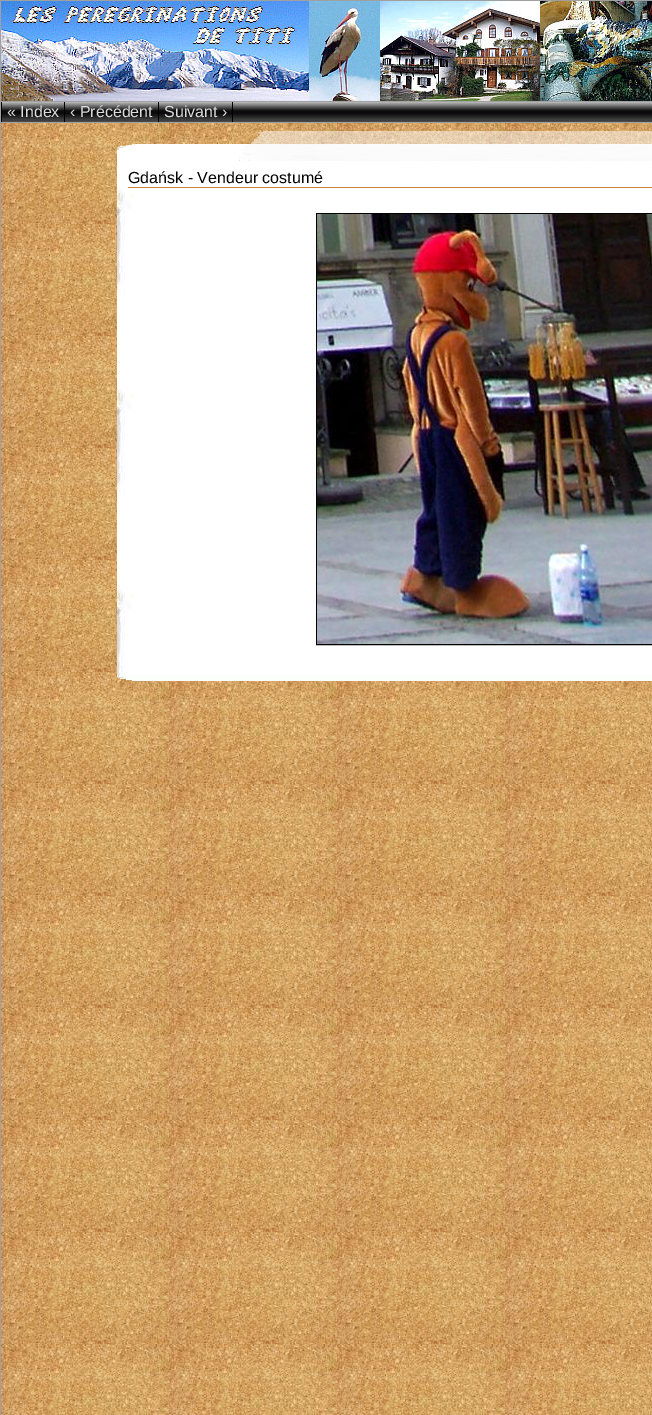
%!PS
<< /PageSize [652 1415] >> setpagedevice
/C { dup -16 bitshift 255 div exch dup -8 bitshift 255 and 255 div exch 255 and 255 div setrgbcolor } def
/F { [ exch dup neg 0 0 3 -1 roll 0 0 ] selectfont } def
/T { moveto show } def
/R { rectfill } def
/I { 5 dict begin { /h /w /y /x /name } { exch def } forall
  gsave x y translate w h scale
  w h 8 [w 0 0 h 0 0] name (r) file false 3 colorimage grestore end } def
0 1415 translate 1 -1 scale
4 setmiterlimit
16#FFFFFF C
0 0 652 1415 R
(1.rgb) 1 123 651 1292 I
16#A0A0A0 C
0 0 1 1415 R
1 0 651 1 R
(2.rgb) 1 1 651 100 I
(3.rgb) 13 6 282 38 I
1 101 651 1 R
(4.rgb) 233 102 419 20 I
16#000000 C
64 102 1 20 R
1 102 1 20 R
(5.rgb) 2 102 62 20 I
/LiberationSans-Regular 16 F
16#DCDCDC C
(« Index) 7 117 T
16#000000 C
158 102 1 20 R
(6.rgb) 65 102 93 20 I
16#DCDCDC C
(‹ Précédent) 70 117 T
16#000000 C
232 102 1 20 R
(7.rgb) 159 102 73 20 I
16#DCDCDC C
(Suivant ›) 164 117 T
16#A0A0A0 C
1 122 651 1 R
(8.rgb) 117 131 535 30 I
(9.rgb) 117 161 535 514 I
16#CD853F C
128 187 524 1 R
16#000000 C
(Gdańsk - Vendeur costumé) 128 183 T
316.5 213.5 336 431 rectstroke
(10.rgb) 317 214 335 430 I
(11.rgb) 117 675 535 6 I
showpage
